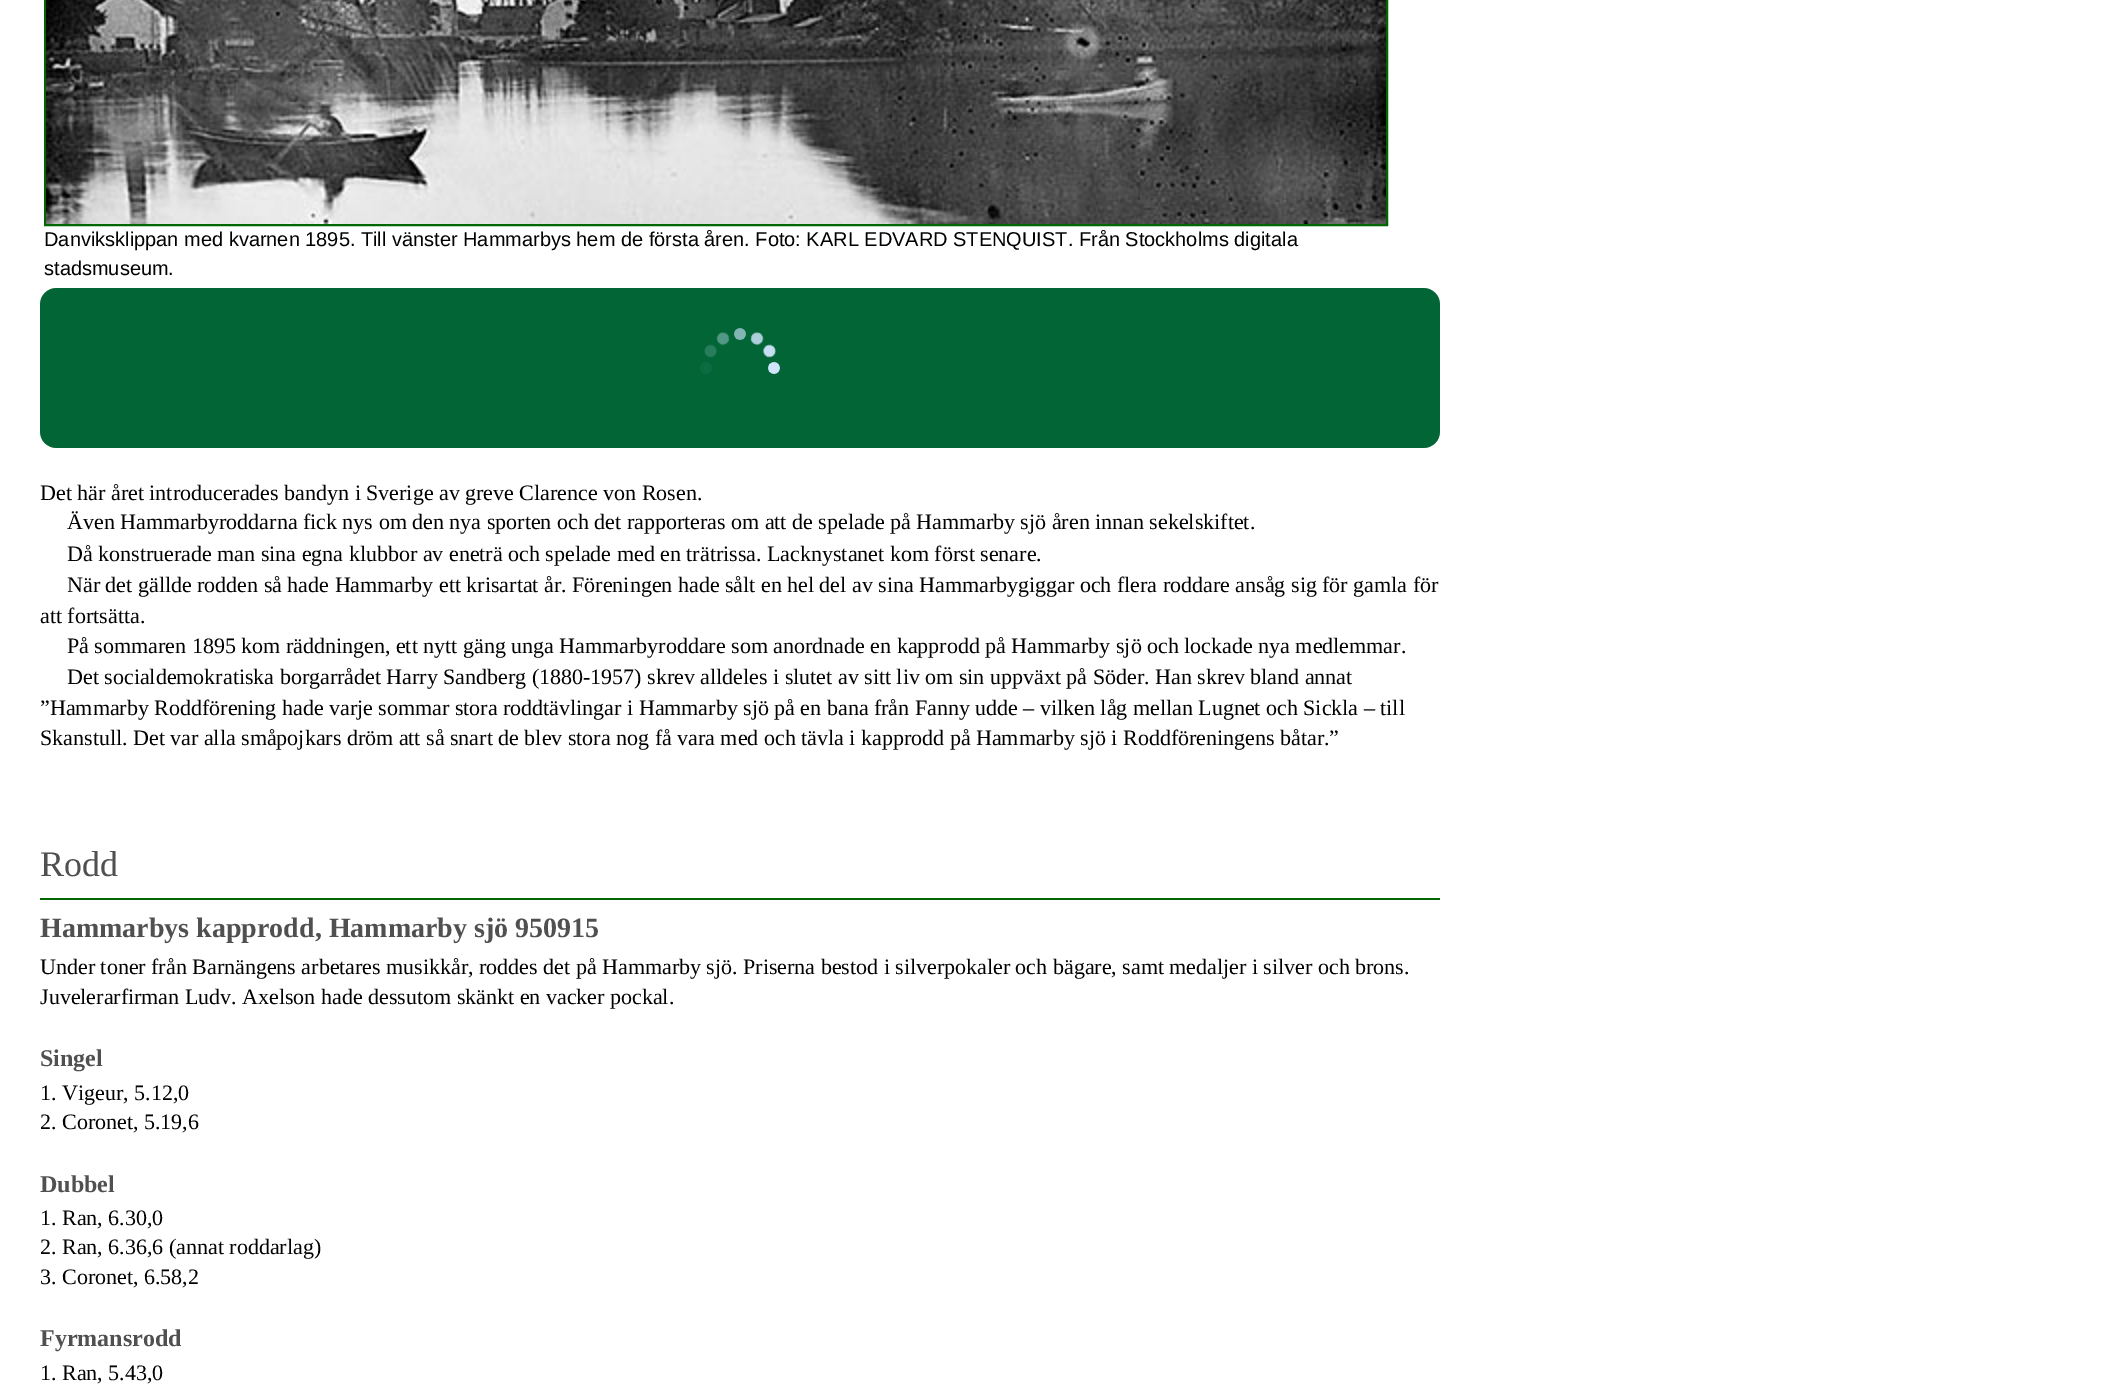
%!PS
<< /PageSize [2102 1399] >> setpagedevice
/w/setlinewidth load def
/C { dup -16 bitshift 255 div exch dup -8 bitshift 255 and 255 div exch 255 and 255 div setrgbcolor } def
/F { [ exch dup neg 0 0 3 -1 roll 0 0 ] selectfont } def
/T { moveto show } def
/R { rectfill } def
/I { 5 dict begin { /h /w /y /x /name } { exch def } forall
  gsave x y translate w h scale
  w h 8 [w 0 0 h 0 0] name (r) file false 3 colorimage grestore end } def
0 1399 translate 1 -1 scale
4 setmiterlimit
16#FFFFFF C
0 0 2102 1399 R
16#006600 C
2 w
45 -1 1342 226 rectstroke
(1.rgb) 46 0 1340 224 I
/LiberationSans-Regular 20 F
16#000000 C
(Danviksklippan med kvarnen 1895. Till vänster Hammarbys hem de första åren. Foto: KARL EDVARD STENQUIST. Från Stockholms digitala) 44 246 T
(stadsmuseum.) 44 275 T
(2.rgb) 40 288 1400 160 I
/LiberationSerif-Regular 22 F
(Det här året introducerades bandyn i Sverige av greve Clarence von Rosen.) 40 500 T
(Även Hammarbyroddarna fick nys om den nya sporten och det rapporteras om att de spelade på Hammarby sjö åren innan sekelskiftet.) 67 529 T
(Då konstruerade man sina egna klubbor av eneträ och spelade med en trätrissa. Lacknystanet kom först senare.) 67 561 T
(När det gällde rodden så hade Hammarby ett krisartat år. Föreningen hade sålt en hel del av sina Hammarbygiggar och flera roddare ansåg sig för gamla för) 67 592 T
(att fortsätta.) 40 623 T
(På sommaren 1895 kom räddningen, ett nytt gäng unga Hammarbyroddare som anordnade en kapprodd på Hammarby sjö och lockade nya medlemmar.) 67 653 T
(Det socialdemokratiska borgarrådet Harry Sandberg \(1880-1957\) skrev alldeles i slutet av sitt liv om sin uppväxt på Söder. Han skrev bland annat) 67 684 T
(”Hammarby Roddförening hade varje sommar stora roddtävlingar i Hammarby sjö på en bana från Fanny udde – vilken låg mellan Lugnet och Sickla – till) 40 715 T
(Skanstull. Det var alla småpojkars dröm att så snart de blev stora nog få vara med och tävla i kapprodd på Hammarby sjö i Roddföreningens båtar.”) 40 745 T
/LiberationSerif-Regular 36 F
16#505050 C
(Rodd) 40 876 T
16#006600 C
40 898 1400 2 R
/LiberationSerif-Bold 28 F
16#505050 C
(Hammarbys kapprodd, Hammarby sjö 950915) 40 937 T
/LiberationSerif-Regular 22 F
16#000000 C
(Under toner från Barnängens arbetares musikkår, roddes det på Hammarby sjö. Priserna bestod i silverpokaler och bägare, samt medaljer i silver och brons.) 40 974 T
(Juvelerarfirman Ludv. Axelson hade dessutom skänkt en vacker pockal.) 40 1004 T
/LiberationSerif-Bold 24 F
16#505050 C
(Singel) 40 1066 T
/LiberationSerif-Regular 22 F
16#000000 C
(1. Vigeur, 5.12,0) 40 1100 T
(2. Coronet, 5.19,6) 40 1129 T
/LiberationSerif-Bold 24 F
16#505050 C
(Dubbel) 40 1192 T
/LiberationSerif-Regular 22 F
16#000000 C
(1. Ran, 6.30,0) 40 1225 T
(2. Ran, 6.36,6 \(annat roddarlag\)) 40 1254 T
(3. Coronet, 6.58,2) 40 1284 T
/LiberationSerif-Bold 24 F
16#505050 C
(Fyrmansrodd) 40 1346 T
/LiberationSerif-Regular 22 F
16#000000 C
(1. Ran, 5.43,0) 40 1380 T
showpage
